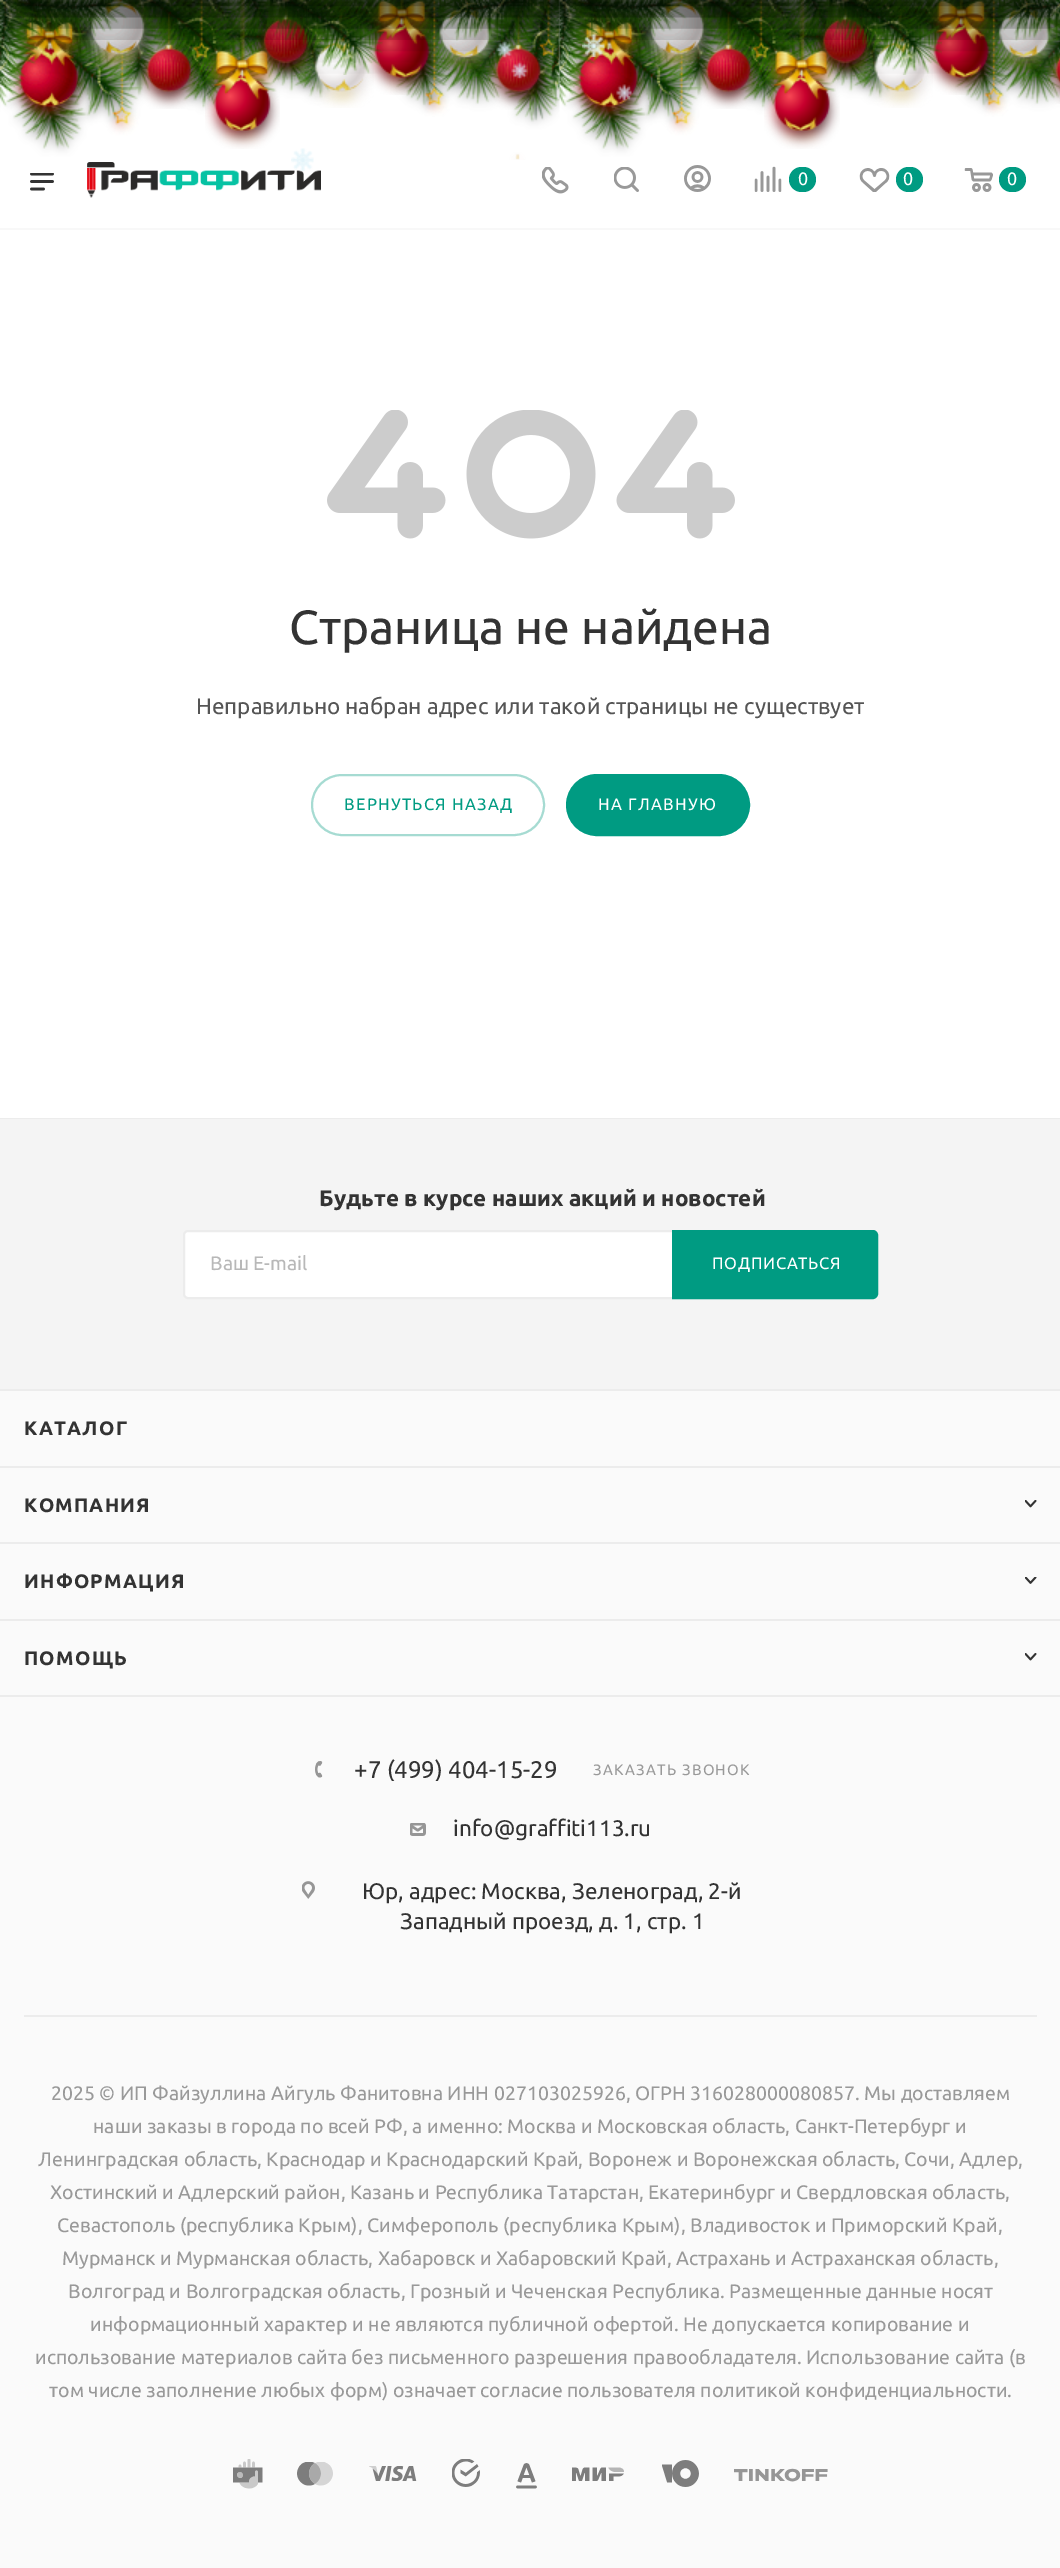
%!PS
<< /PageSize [1060 2568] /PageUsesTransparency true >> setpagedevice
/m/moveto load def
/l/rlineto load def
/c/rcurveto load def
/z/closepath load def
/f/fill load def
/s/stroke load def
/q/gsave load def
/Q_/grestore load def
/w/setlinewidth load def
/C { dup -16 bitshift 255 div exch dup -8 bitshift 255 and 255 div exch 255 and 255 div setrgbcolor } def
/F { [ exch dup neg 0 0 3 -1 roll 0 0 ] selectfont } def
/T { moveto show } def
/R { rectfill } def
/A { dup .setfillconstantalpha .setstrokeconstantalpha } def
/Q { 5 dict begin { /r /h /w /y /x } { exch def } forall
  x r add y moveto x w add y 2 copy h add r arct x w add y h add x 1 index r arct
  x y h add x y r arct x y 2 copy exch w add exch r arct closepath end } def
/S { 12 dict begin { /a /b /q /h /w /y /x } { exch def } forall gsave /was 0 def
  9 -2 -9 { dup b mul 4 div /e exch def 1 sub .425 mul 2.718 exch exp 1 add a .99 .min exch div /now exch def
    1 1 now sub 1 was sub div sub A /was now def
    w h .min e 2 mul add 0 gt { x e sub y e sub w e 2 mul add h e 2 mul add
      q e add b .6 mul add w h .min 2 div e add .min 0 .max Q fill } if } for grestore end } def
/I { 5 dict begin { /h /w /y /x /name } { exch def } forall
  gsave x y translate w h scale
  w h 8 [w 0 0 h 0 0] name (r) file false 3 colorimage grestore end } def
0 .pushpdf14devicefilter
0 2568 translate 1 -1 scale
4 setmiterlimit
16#FFFFFF C
0 0 1060 2568 R
(6.rgb) 0 0 1060 160 I
(11.rgb) 205 0 75 149 I
(12.rgb) 255 0 61 80 I
(18.rgb) 306 9 68 99 I
(15.rgb) 365 0 73 95 I
(16.rgb) 431 0 69 73 I
(21.rgb) 487 15 63 95 I
(19.rgb) 433 0 118 42 I
(8.rgb) 10 0 78 123 I
(7.rgb) 0 0 38 107 I
(10.rgb) 81 0 73 70 I
(9.rgb) 37 0 92 40 I
(13.rgb) 265 0 43 46 I
(14.rgb) 307 0 76 75 I
(17.rgb) 137 13 62 96 I
(20.rgb) 550 0 10 104 I
(23.rgb) 569 0 78 123 I
(22.rgb) 559 0 38 107 I
(25.rgb) 640 0 74 70 I
(24.rgb) 597 0 91 40 I
(26.rgb) 764 0 76 149 I
(27.rgb) 814 0 61 80 I
(33.rgb) 866 9 67 99 I
(28.rgb) 825 0 42 46 I
(30.rgb) 925 0 73 95 I
(29.rgb) 867 0 75 75 I
(31.rgb) 990 0 69 73 I
(32.rgb) 697 13 62 96 I
(34.rgb) 993 0 67 42 I
(35.rgb) 1047 52 13 52 I
16#000000 C
0 -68 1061 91 0 22.5 .75 S
(1.rgb) 496 40 18 18 I
(2.rgb) 582 34 23 23 I
(3.rgb) 511 61 18 18 I
(4.rgb) 616 84 16 17 I
(37.rgb) 87 162 234 36 I
(5.rgb) 291 148 23 23 I
16#F8F8F8 C
0 228 1060 2 R
(36.rgb) 30 173 24 18 I
(38.rgb) 542 167 27 27 I
(39.rgb) 614 167 25 25 I
(40.rgb) 684 165 27 27 I
(41.rgb) 754 166 28 26 I
16#009B82 C
789 167 27 25 12.5 Q f
/Ubuntu-Regular 18 F
16#FFFFFF C
(0) 798 185 T
(42.rgb) 859 168 31 24 I
16#009B82 C
896 167 27 25 12.5 Q f
16#FFFFFF C
(0) 903 185 T
(43.rgb) 964 168 29 24 I
16#009B82 C
999 167 27 25 12.5 Q f
16#FFFFFF C
(0) 1007 185 T
(44.rgb) 327 410 408 129 I
/Ubuntu-Regular 48 F
16#333333 C
(Страница не найдена) 289 644 T
/Ubuntu-Regular 22.5 F
16#555555 C
(Неправильно набран адрес или такой страницы не существует) 196 714 T
16#A6DBD2 C
2 w
312 775 232 60 30 Q s
/Ubuntu-Regular 16.5 F
16#009B82 C
344 810 m 1.25 0 (ВЕРНУТЬСЯ НАЗАД) ashow
567 775 182 60 30 Q q f Q_
s
16#FFFFFF C
598 810 m 1.25 0 (НА ГЛАВНУЮ) ashow
16#FAFAFA C
0 1391 1060 1177 R
16#ECECEC C
0 1118 1060 1 R
16#F4F4F4 C
0 1119 1060 270 R
/Ubuntu-Bold 22.5 F
16#333333 C
(Будьте в курсе наших акций и новостей) 319 1206 T
16#FFFFFF C
184 1231 693 67 4 Q q f Q_
16#ECECEC C
s
/Ubuntu-Regular 19.5 F
16#B8B8B8 C
(Ваш E-mail) 210 1270 T
16#009B82 C
673 1231 m 200 0 l 2 0 4 2 4 4 c 0 59 l 0 2 -2 4 -4 4 c -200 0 l z q f Q_
s
/Ubuntu-Regular 16.5 F
16#FFFFFF C
712 1269 m .75 0 (ПОДПИСАТЬСЯ) ashow
16#ECECEC C
0 1389 1060 2 R
0 1466 1060 2 R
/Ubuntu-Bold 19.5 F
16#333333 C
24 1435 m 1.25 0 (КАТАЛОГ) ashow
16#ECECEC C
0 1542 1060 2 R
16#333333 C
24 1512 m 1.25 0 (КОМПАНИЯ) ashow
(45.rgb) 1025 1500 12 8 I
16#ECECEC C
0 1619 1060 2 R
16#333333 C
24 1588 m 1.25 0 (ИНФОРМАЦИЯ) ashow
(46.rgb) 1025 1577 12 7 I
16#ECECEC C
0 1695 1060 2 R
16#333333 C
24 1665 m 1.25 0 (ПОМОЩЬ) ashow
(47.rgb) 1025 1653 12 8 I
(48.rgb) 315 1761 8 17 I
q
311 1757 267 24 rectclip
/Ubuntu-Regular 24 F
(+7 \(499\) 404-15-29) 354 1778 T
Q_
/Ubuntu-Regular 15 F
16#999999 C
593 1775 m 1.25 0 (ЗАКАЗАТЬ ЗВОНОК) ashow
(49.rgb) 410 1823 16 13 I
/Ubuntu-Regular 22.5 F
16#333333 C
(info@graffiti113.ru) 453 1836 T
(50.rgb) 302 1881 13 18 I
(Юр, адрес: Москва, Зеленоград, 2-й) 362 1899 T
(Западный проезд, д. 1, стр. 1) 400 1929 T
16#ECECEC C
24 2015 1013 2 R
/Ubuntu-Regular 19.5 F
16#999999 C
(2025 © ИП Файзуллина Айгуль Фанитовна ИНН 027103025926, ОГРН 316028000080857. Мы доставляем) 51 2100 T
(наши заказы в города по всей РФ, а именно: Москва и Московская область, Санкт-Петербург и) 93 2133 T
(Ленинградская область, Краснодар и Краснодарский Край, Воронеж и Воронежская область, Сочи, Адлер,) 38 2166 T
(Хостинский и Адлерский район, Казань и Республика Татарстан, Екатеринбург и Свердловская область,) 50 2199 T
(Севастополь \(республика Крым\), Симферополь \(республика Крым\), Владивосток и Приморский Край,) 57 2232 T
(Мурманск и Мурманская область, Хабаровск и Хабаровский Край, Астрахань и Астраханская область,) 62 2265 T
(Волгоград и Волгоградская область, Грозный и Чеченская Республика. Размещенные данные носят) 68 2298 T
(информационный характер и не являются публичной офертой. Не допускается копирование и) 90 2331 T
(использование материалов сайта без письменного разрешения правообладателя. Использование сайта \(в) 35 2364 T
(том числе заполнение любых форм\) означает согласие пользователя политикой конфиденциальности.) 49 2397 T
(51.rgb) 233 2459 30 30 I
(52.rgb) 297 2462 36 24 I
(53.rgb) 369 2466 48 15 I
(54.rgb) 452 2459 28 28 I
(55.rgb) 516 2463 21 26 I
(56.rgb) 572 2467 52 14 I
(57.rgb) 662 2460 37 27 I
(58.rgb) 734 2468 94 14 I
.poppdf14devicefilter showpage
